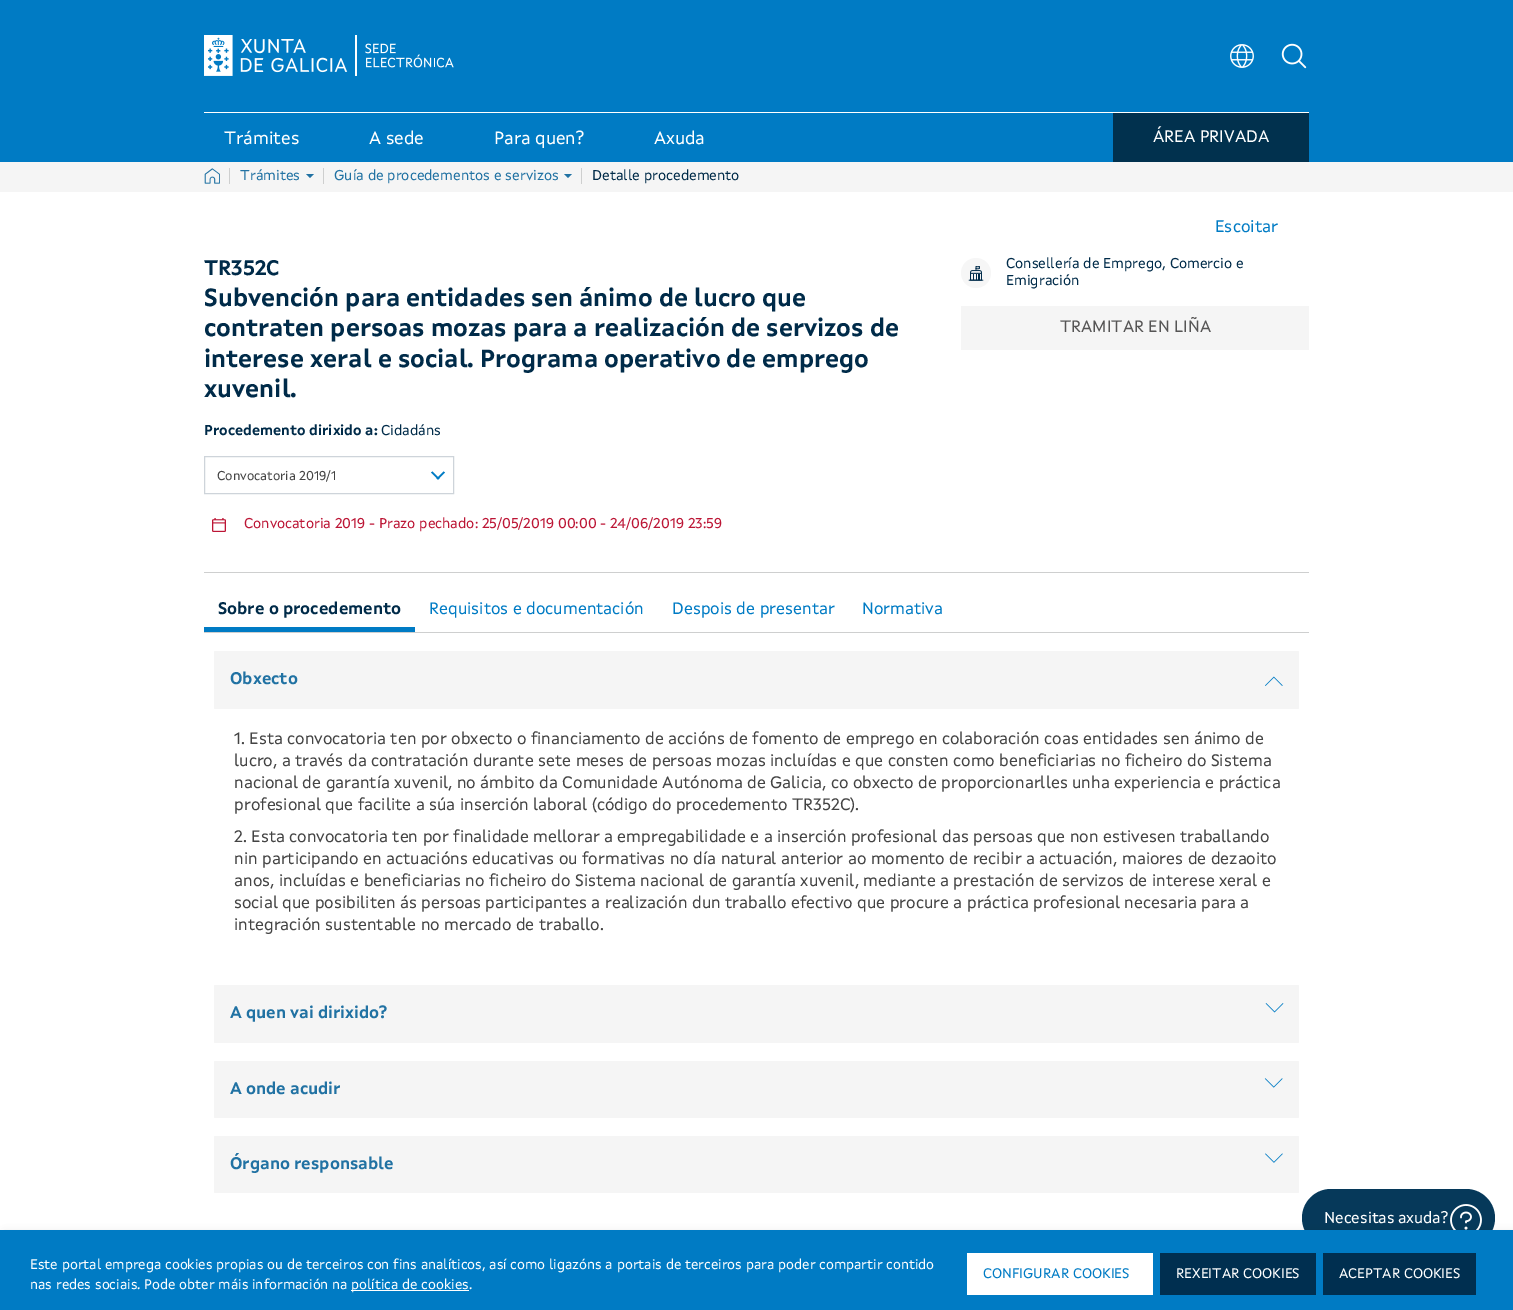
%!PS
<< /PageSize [1513 1310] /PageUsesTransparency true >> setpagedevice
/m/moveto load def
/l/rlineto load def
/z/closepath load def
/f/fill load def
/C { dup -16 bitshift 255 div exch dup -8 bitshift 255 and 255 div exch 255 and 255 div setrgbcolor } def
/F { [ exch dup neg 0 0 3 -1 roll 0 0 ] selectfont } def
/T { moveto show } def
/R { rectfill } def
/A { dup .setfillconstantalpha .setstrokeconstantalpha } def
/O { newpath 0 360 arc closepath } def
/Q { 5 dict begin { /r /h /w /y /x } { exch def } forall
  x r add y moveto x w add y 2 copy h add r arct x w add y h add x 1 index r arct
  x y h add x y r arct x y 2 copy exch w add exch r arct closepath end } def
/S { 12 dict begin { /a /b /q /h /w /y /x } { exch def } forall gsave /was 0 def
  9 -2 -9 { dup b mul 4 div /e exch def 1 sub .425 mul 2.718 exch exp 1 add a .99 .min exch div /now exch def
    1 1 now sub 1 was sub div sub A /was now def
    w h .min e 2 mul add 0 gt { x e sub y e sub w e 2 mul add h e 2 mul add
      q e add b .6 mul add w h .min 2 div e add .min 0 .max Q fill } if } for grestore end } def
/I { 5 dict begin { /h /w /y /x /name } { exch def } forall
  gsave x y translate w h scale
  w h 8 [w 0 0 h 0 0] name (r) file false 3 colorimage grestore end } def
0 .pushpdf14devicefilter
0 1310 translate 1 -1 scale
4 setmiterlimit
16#FFFFFF C
0 0 1513 1310 R
16#007BC4 C
0 0 1513 162 R
(1.rgb) 204 35 250 41 I
(2.rgb) 1230 44 24 24 I
(3.rgb) 1281 43 26 26 I
16#FFFFFF C
204 112 1105 1 R
/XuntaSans-Regular 18 F
(Trámites) 224 144 T
(A sede) 369 144 T
(Para quen?) 494 144 T
(Axuda) 654 144 T
16#01314E C
1113 113 196 49 R
/XuntaSans-Regular 17 F
16#FFFFFF C
(ÁREA PRIVADA) 1153 142 T
16#F5F5F5 C
0 162 1513 30 R
(4.rgb) 204 168 16 16 I
16#CECFCF C
229 168 1 16 R
/XuntaSans-Regular 14.4 F
16#2172A3 C
(Trámites) 240 180 T
306 174 m 8 0 l -4 4 l z f
16#CECFCF C
323 168 1 16 R
16#2172A3 C
(Guía de procedementos e servizos) 334 180 T
564 174 m 8 0 l -4 4 l z f
16#CECFCF C
581 168 1 16 R
16#002B49 C
(Detalle procedemento) 592 180 T
/XuntaSans-Regular 17 F
16#007BC4 C
(Escoitar) 1215 232 T
/XuntaSans-Bold 21 F
16#002B49 C
(TR352C) 204 275 T
/XuntaSans-Bold 24.8 F
(Subvención para entidades sen ánimo de lucro que) 204 306 T
(contraten persoas mozas para a realización de servizos de) 204 336 T
(interese xeral e social. Programa operativo de emprego) 204 367 T
(xuvenil.) 204 397 T
/XuntaSans-Bold 14.4 F
(Procedemento dirixido a:) 204 435 T
/XuntaSans-Regular 14.4 F
(Cidadáns) 381 435 T
16#CED4DA C
204.5 456.5 249 37 rectstroke
/XuntaSans-Regular 13 F
16#444444 C
(Convocatoria 2019/1) 217 480 T
16#007BC4 C
436.5 478.5 m 7 -7 l 1.5 1 l -7 7 l z f
431 472.5 m 1.5 -1 l 7 7 l -1.5 1 l z f
(5.rgb) 212 518 14 14 I
/XuntaSans-Regular 14.4 F
16#BC1535 C
(Convocatoria 2019 - Prazo pechado: 25/05/2019 00:00 - 24/06/2019 23:59) 244 528 T
16#F6F6F6 C
976 273 15 O f
(6.rgb) 968 266 16 15 I
16#002B49 C
(Consellería de Emprego, Comercio e) 1006 268 T
(Emigración) 1006 285 T
16#F5F5F5 C
961 306 348 44 R
/XuntaSans-Regular 16.8 F
16#565555 C
(TRAMITAR EN LIÑA) 1060 332 T
16#CECFCF C
204 572 1105 1 R
204 632 1105 1 R
16#007BC4 C
204 627 211 5 R
/XuntaSans-Bold 16.8 F
16#002B49 C
(Sobre o procedemento) 218 614 T
/XuntaSans-Regular 16.8 F
16#007BC4 C
(Requisitos e documentación) 429 614 T
(Despois de presentar) 672 614 T
(Normativa) 862 614 T
16#F5F5F5 C
214 651 1085 58 1 Q f
/XuntaSans-Bold 16.8 F
16#2172A3 C
(Obxecto) 230 684 T
(7.rgb) 1265 676 18 10 I
/XuntaSans-Regular 16.8 F
16#444444 C
(1. Esta convocatoria ten por obxecto o financiamento de accións de fomento de emprego en colaboración coas entidades sen ánimo de) 234 744 T
(lucro, a través da contratación durante sete meses de persoas mozas incluídas e que consten como beneficiarias no ficheiro do Sistema) 234 766 T
(nacional de garantía xuvenil, no ámbito da Comunidade Autónoma de Galicia, co obxecto de proporcionarlles unha experiencia e práctica) 234 788 T
(profesional que facilite a súa inserción laboral \(código do procedemento TR352C\).) 234 810 T
(2. Esta convocatoria ten por finalidade mellorar a empregabilidade e a inserción profesional das persoas que non estivesen traballando) 234 842 T
(nin participando en actuacións educativas ou formativas no día natural anterior ao momento de recibir a actuación, maiores de dezaoito) 234 864 T
(anos, incluídas e beneficiarias no ficheiro do Sistema nacional de garantía xuvenil, mediante a prestación de servizos de interese xeral e) 234 886 T
(social que posibiliten ás persoas participantes a realización dun traballo efectivo que procure a práctica profesional necesaria para a) 234 908 T
(integración sustentable no mercado de traballo.) 234 930 T
16#F5F5F5 C
214 985 1085 58 1 Q f
/XuntaSans-Bold 16.8 F
16#2172A3 C
(A quen vai dirixido?) 230 1018 T
(8.rgb) 1265 1003 19 10 I
16#F5F5F5 C
214 1061 1085 57 1 Q f
16#2172A3 C
(A onde acudir) 230 1094 T
(9.rgb) 1264 1078 19 10 I
16#F5F5F5 C
214 1136 1085 57 1 Q f
16#2172A3 C
(Órgano responsable) 230 1169 T
(10.rgb) 1265 1153 18 10 I
16#06395A C
1302 1189 193 58 29 Q f
/XuntaSans-Regular 16 F
16#FFFFFF C
1324 1223 m -1 0 32 (Necesitas axuda?) widthshow
(11.rgb) 1450 1204 32 26 I
16#000000 C
5 1235 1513 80 0 5 .19 S
16#007BC4 C
0 1230 1513 80 R
/XuntaSans-Regular 14 F
16#FFFFFF C
(Este portal emprega cookies propias ou de terceiros con fins analíticos, así como ligazóns a portais de terceiros para poder compartir contido) 30 1269 T
(nas redes sociais. Pode obter máis información na) 30 1289 T
351 1290 118 1 R
(política de cookies.) 351 1289 T
967 1253 186 42 R
16#007BC4 C
(CONFIGURAR COOKIES) 983 1278 T
16#002F50 C
1160 1253 156 42 R
16#FFFFFF C
(REXEITAR COOKIES) 1176 1278 T
16#002F50 C
1323 1253 153 42 R
16#FFFFFF C
(ACEPTAR COOKIES) 1339 1278 T
.poppdf14devicefilter showpage
